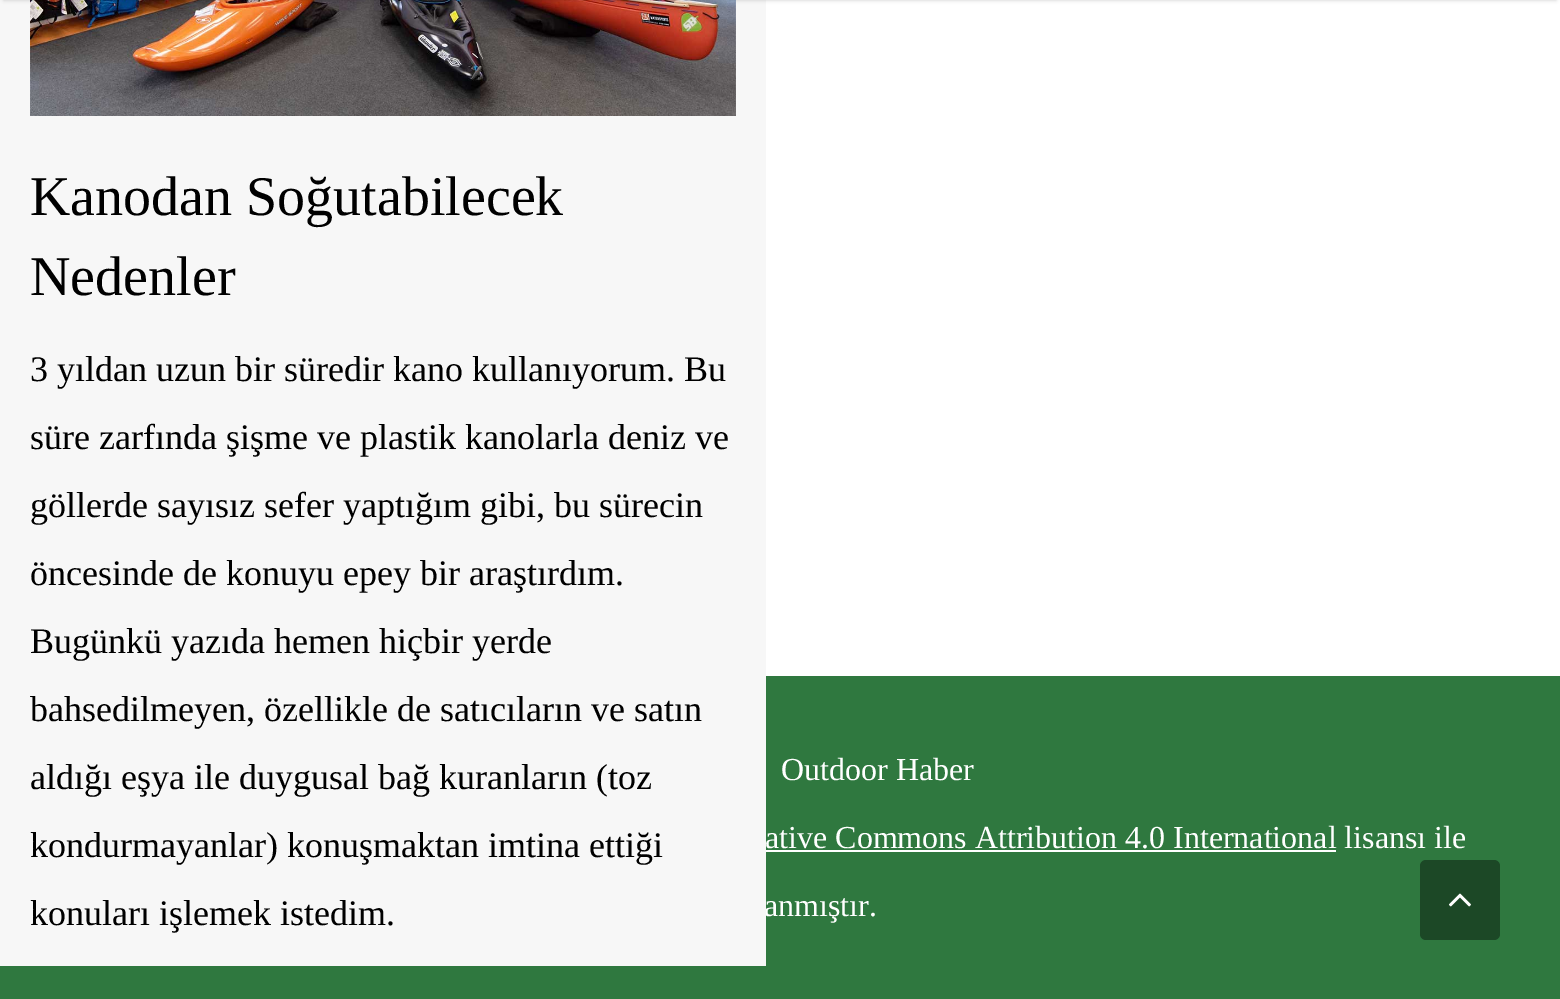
%!PS
<< /PageSize [1560 999] /PageUsesTransparency true >> setpagedevice
/f/fill load def
/C { dup -16 bitshift 255 div exch dup -8 bitshift 255 and 255 div exch 255 and 255 div setrgbcolor } def
/F { [ exch dup neg 0 0 3 -1 roll 0 0 ] selectfont } def
/T { moveto show } def
/R { rectfill } def
/A { dup .setfillconstantalpha .setstrokeconstantalpha } def
/Q { 5 dict begin { /r /h /w /y /x } { exch def } forall
  x r add y moveto x w add y 2 copy h add r arct x w add y h add x 1 index r arct
  x y h add x y r arct x y 2 copy exch w add exch r arct closepath end } def
/S { 12 dict begin { /a /b /q /h /w /y /x } { exch def } forall gsave /was 0 def
  9 -2 -9 { dup b mul 4 div /e exch def 1 sub .425 mul 2.718 exch exp 1 add a .99 .min exch div /now exch def
    1 1 now sub 1 was sub div sub A /was now def
    w h .min e 2 mul add 0 gt { x e sub y e sub w e 2 mul add h e 2 mul add
      q e add b .6 mul add w h .min 2 div e add .min 0 .max Q fill } if } for grestore end } def
/I { 5 dict begin { /h /w /y /x /name } { exch def } forall
  gsave x y translate w h scale
  w h 8 [w 0 0 h 0 0] name (r) file false 3 colorimage grestore end } def
0 .pushpdf14devicefilter
0 999 translate 1 -1 scale
4 setmiterlimit
16#FFFFFF C
0 0 1560 999 R
16#2F783F C
0 676 1560 323 R
/LiberationSerif-Regular 32 F
16#FFFFFF C
(anmıştır.) 764 916 T
16#F7F7F7 C
0 0 766 966 R
(1.rgb) 30 0 706 116 I
16#000000 C
4 -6 1552 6 0 2 .2 S
/LiberationSerif-Regular 56 F
(Kanodan Soğutabilecek) 30 215 T
(Nedenler) 30 295 T
/LiberationSerif-Regular 36 F
(3 yıldan uzun bir süredir kano kullanıyorum. Bu) 30 381 T
(süre zarfında şişme ve plastik kanolarla deniz ve) 30 449 T
(göllerde sayısız sefer yaptığım gibi, bu sürecin) 30 517 T
(öncesinde de konuyu epey bir araştırdım.) 30 585 T
(Bugünkü yazıda hemen hiçbir yerde) 30 653 T
(bahsedilmeyen, özellikle de satıcıların ve satın) 30 721 T
(aldığı eşya ile duygusal bağ kuranların \(toz) 30 789 T
(kondurmayanlar\) konuşmaktan imtina ettiği) 30 857 T
(konuları işlemek istedim.) 30 925 T
/LiberationSerif-Regular 32 F
16#FFFFFF C
(Outdoor Haber) 781 780 T
(ative Commons Attribution 4.0 International lisansı ile) 765 848 T
766 850 570 2 R
16#1C4826 C
1420 860 80 80 6 Q f
(2.rgb) 1449 893 22 14 I
.poppdf14devicefilter showpage
